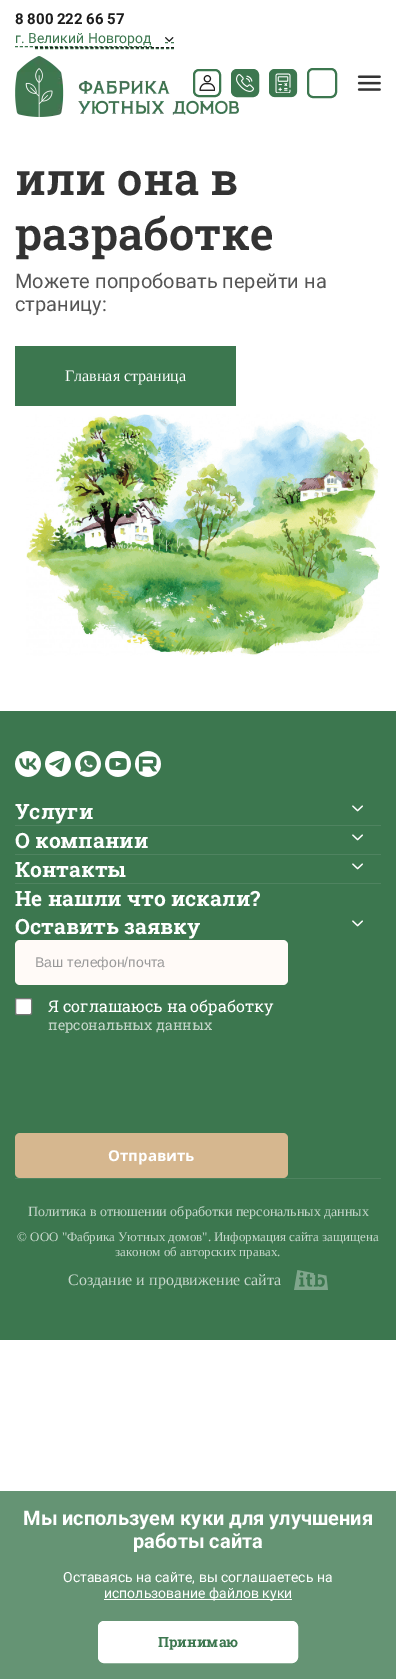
%!PS
<< /PageSize [396 1679] /PageUsesTransparency true >> setpagedevice
/m/moveto load def
/l/rlineto load def
/f/fill load def
/s/stroke load def
/q/gsave load def
/Q_/grestore load def
/w/setlinewidth load def
/C { dup -16 bitshift 255 div exch dup -8 bitshift 255 and 255 div exch 255 and 255 div setrgbcolor } def
/F { [ exch dup neg 0 0 3 -1 roll 0 0 ] selectfont } def
/T { moveto show } def
/R { rectfill } def
/A { dup .setfillconstantalpha .setstrokeconstantalpha } def
/Q { 5 dict begin { /r /h /w /y /x } { exch def } forall
  x r add y moveto x w add y 2 copy h add r arct x w add y h add x 1 index r arct
  x y h add x y r arct x y 2 copy exch w add exch r arct closepath end } def
/I { 5 dict begin { /h /w /y /x /name } { exch def } forall
  gsave x y translate w h scale
  w h 8 [w 0 0 h 0 0] name (r) file false 3 colorimage grestore end } def
0 .pushpdf14devicefilter
0 1679 translate 1 -1 scale
4 setmiterlimit
16#FFFFFF C
0 0 396 1679 R
/Roboto-Bold 15 F
16#1C1C1C C
(8 800 222 66 57) 15 24 T
16#3E774F C
[3 2.04] 0 setdash
35 48.5 m 139 0 l s
[3 1.96] 0 setdash
15 46.5 m 137 0 l s
[] 0 setdash
165 42.5 m 3 0 l 171 42.5 m 3 0 l s
/Roboto-Regular 14 F
16#3C774F C
(г. Великий Новгород) 15 43 T
(1.rgb) 165 37 9 5 I
16#1C1C1C C
[3 2.04] 0 setdash
35 47.5 m 139 0 l s
(2.rgb) 15 56 224 61 I
16#3C774F C
2 w
[] 0 setdash
194 70 26 26 5 Q s
(3.rgb) 199 75 16 16 I
232 70 26 26 5 Q q f Q_
s
(4.rgb) 236 74 18 18 I
269 69 28 28 6 Q f
0.5 A
270 70 26 26 5 Q s
1 A
(5.rgb) 275 73 16 20 I
308 69 28 28 5 Q s
(6.rgb) 357 75 24 16 I
/RobotoSlab-SemiBold 45 F
16#333333 C
(или она в) 15 195 T
(разработке) 15 250 T
/Roboto-Regular 20 F
16#555555 C
(Можете попробовать перейти на) 15 288 T
(страницу:) 15 311 T
16#3C774F C
15 346 221 60 R
/LiberationSerif-Regular 16 F
16#FFFFFF C
(Главная страница) 65 381 T
(7.rgb) 26 414 354 242 I
16#3C774F C
0 711 396 629 R
(8.rgb) 15 751 26 26 I
(9.rgb) 45 751 26 26 I
(10.rgb) 75 751 26 26 I
(11.rgb) 105 751 26 26 I
(12.rgb) 135 751 26 26 I
16#4F8360 C
15 825 366 1 R
/RobotoSlab-Bold 21 F
16#FFFFFF C
(Услуги) 15 819 T
(13.rgb) 352 805 11 7 I
16#4F8360 C
15 854 366 1 R
16#FFFFFF C
(О компании) 15 848 T
(13.rgb) 352 834 11 7 I
16#4F8360 C
15 883 366 1 R
16#FFFFFF C
(Контакты) 15 877 T
(13.rgb) 352 863 11 7 I
16#4F8360 C
15 1178 366 1 R
16#FFFFFF C
(Не нашли что искали?) 15 906 T
(Оставить заявку) 15 934 T
(13.rgb) 352 920 11 7 I
16#FFFAF7 C
15 940 273 45 5 Q f
/LiberationSans-Regular 14 F
16#999999 C
(Ваш телефон/почта) 35 967 T
16#FFFFFF C
15.5 998.5 16 16 1.5 Q q f Q_
16#767676 C
1 w
s
/RobotoSlab-Regular 16 F
16#FFFFFF C
(Я соглашаюсь на обработку) 48 1012 T
/RobotoSlab-Regular 14 F
16#C5D6CA C
(персональных данных) 48 1030 T
16#D6B78F C
15 1133 273 45 5 Q f
/OpenSans-Bold 15 F
16#FFFFFF C
(Отправить) 108 1161 T
/LiberationSerif-Regular 14 F
16#C5D6CA C
(Политика в отношении обработки персональных данных) 28 1216 T
/LiberationSerif-Regular 13 F
(© ООО "Фабрика Уютных домов". Информация сайта защищена) 17 1241 T
(законом об авторских правах.) 115 1256 T
/LiberationSerif-Regular 16 F
(Создание и продвижение сайта) 68 1285 T
(14.rgb) 294 1270 34 20 I
16#659474 C
0 1491 396 188 R
/Roboto-Bold 20 F
16#FFFFFF C
(Мы используем куки для улучшения) 23 1525 T
(работы сайта) 133 1548 T
/Roboto-Regular 14 F
(Оставаясь на сайте, вы соглашаетесь на) 63 1582 T
104 1599 188 1 R
(использование файлов куки) 104 1598 T
98.5 1621.5 199 41 5.5 Q q f Q_
s
/RobotoSlab-Bold 14 F
16#3C774F C
(Принимаю) 158 1647 T
.poppdf14devicefilter showpage
